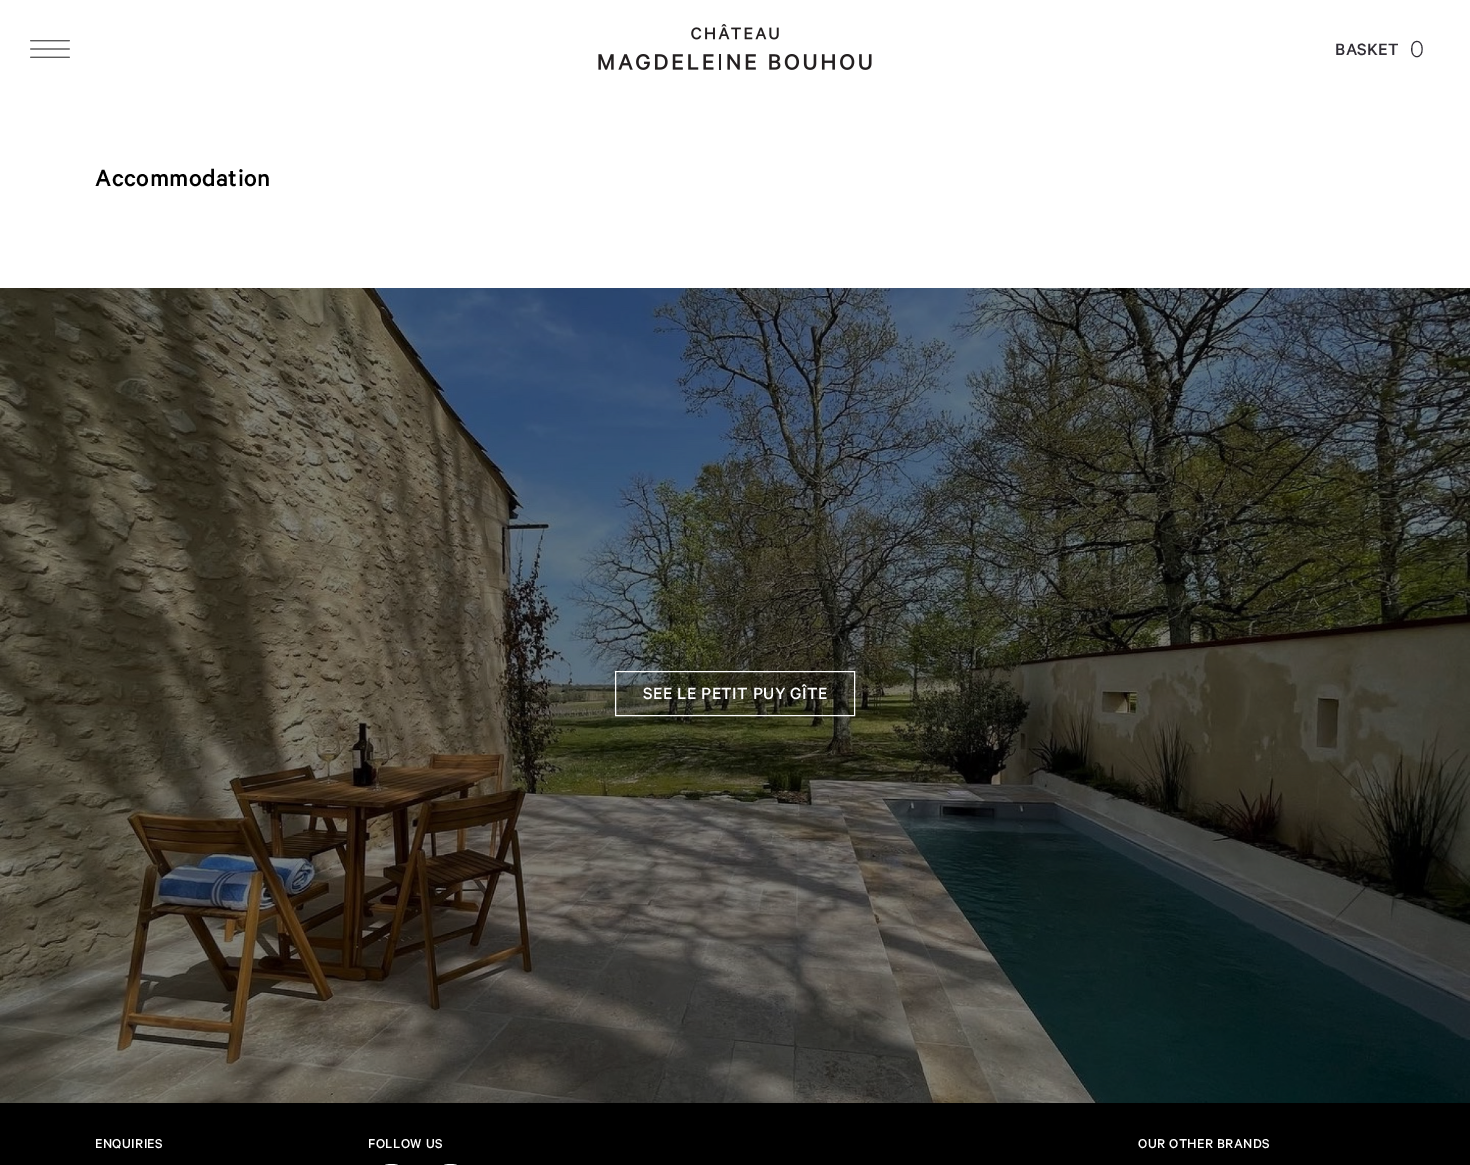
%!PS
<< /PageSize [1470 1165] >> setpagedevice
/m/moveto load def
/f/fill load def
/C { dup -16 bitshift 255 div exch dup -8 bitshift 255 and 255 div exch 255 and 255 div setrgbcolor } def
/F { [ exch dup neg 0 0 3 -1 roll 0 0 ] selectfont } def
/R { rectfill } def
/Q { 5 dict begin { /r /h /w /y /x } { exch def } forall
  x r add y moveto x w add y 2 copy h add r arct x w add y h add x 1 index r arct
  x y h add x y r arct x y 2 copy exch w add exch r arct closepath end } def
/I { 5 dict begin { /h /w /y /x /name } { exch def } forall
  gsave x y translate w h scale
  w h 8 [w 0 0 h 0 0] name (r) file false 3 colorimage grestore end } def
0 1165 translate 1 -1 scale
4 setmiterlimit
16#FFFFFF C
0 0 1470 1165 R
(1.rgb) 30 40 40 18 I
(2.rgb) 598 24 274 46 I
/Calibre-Medium 18.5 F
16#312E36 C
1335 55 m .4 0 (BASKET) ashow
/Calibre-Light 26 F
1410 57 m .4 0 (0) ashow
/Calibre-Medium 26.5 F
16#000000 C
95 186 m .4 0 (Accommodation) ashow
(3.rgb) 0 288 1470 815 I
16#FFFFFF C
615.5 671.5 239 44 rectstroke
/Calibre-Medium 18.4 F
643 699 m .4 0 (SEE LE PETIT PUY GÎTE) ashow
16#000000 C
0 1103 1470 62 R
/Calibre-Medium 14.5 F
16#FFFFFF C
95 1148 m .4 0 (ENQUIRIES) ashow
368 1148 m .4 0 (FOLLOW US) ashow
368 1164 47 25 23.5 Q f
427 1164 47 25 23.5 Q f
1138 1148 m .4 0 (OUR OTHER BRANDS) ashow
showpage
